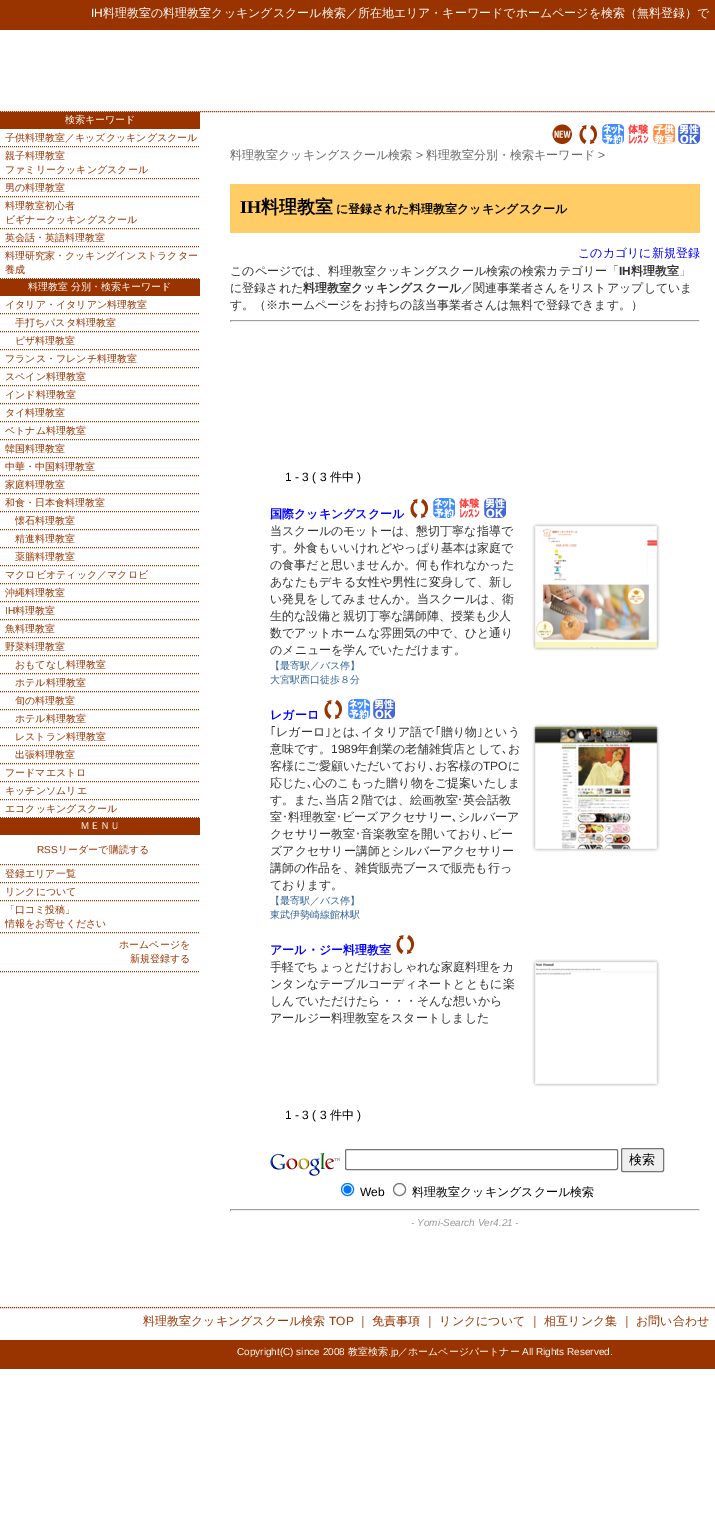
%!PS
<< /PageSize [715 1529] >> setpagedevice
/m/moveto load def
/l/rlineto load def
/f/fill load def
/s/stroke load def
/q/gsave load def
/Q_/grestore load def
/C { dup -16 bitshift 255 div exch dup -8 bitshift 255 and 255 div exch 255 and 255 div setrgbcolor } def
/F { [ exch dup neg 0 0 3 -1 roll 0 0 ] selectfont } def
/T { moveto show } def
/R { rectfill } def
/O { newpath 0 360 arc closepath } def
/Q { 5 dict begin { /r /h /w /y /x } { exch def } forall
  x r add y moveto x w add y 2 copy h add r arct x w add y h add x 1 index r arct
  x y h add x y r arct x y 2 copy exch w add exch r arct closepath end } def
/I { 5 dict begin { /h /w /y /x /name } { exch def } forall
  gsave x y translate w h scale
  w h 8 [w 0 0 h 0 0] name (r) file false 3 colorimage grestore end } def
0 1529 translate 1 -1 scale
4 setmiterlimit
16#FFFFFF C
0 0 715 1529 R
16#993300 C
0 0 715 30 R
/LiberationSans-Regular 12 F
16#FFFFFF C
(IH) 91 17 T
/WenQuanYiZenHei-Medium 12 F
(料理教室の料理教室クッキングスクール検索／所在地エリア・キーワードでホームページを検索（無料登録）で) 103 17 T
16#993300 C
[1 1] 0 setdash
0 111.5 m 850 0 l s
0 112 200 17 R
/WenQuanYiZenHei-Medium 10 F
16#FFFFFF C
(検索キーワード) 65 123 T
16#993300 C
0 146.5 m 200 0 l s
(子供料理教室／キッズクッキングスクール) 5 141 T
0 178.5 m 200 0 l s
(親子料理教室) 5 159 T
(ファミリークッキングスクール) 5 173 T
0 196.5 m 200 0 l s
(男の料理教室) 5 191 T
0 228.5 m 200 0 l s
(料理教室初心者) 5 209 T
(ビギナークッキングスクール) 5 223 T
0 246.5 m 200 0 l s
(英会話・英語料理教室) 5 241 T
0 278.5 m 200 0 l s
(料理研究家・クッキングインストラクター) 5 259 T
(養成) 5 273 T
0 279 200 17 R
16#FFFFFF C
(料理教室 分別・検索キーワード) 28 290 T
16#993300 C
0 313.5 m 200 0 l s
(イタリア・イタリアン料理教室) 5 308 T
0 331.5 m 200 0 l s
(手打ちパスタ料理教室) 15 326 T
0 349.5 m 200 0 l s
(ピザ料理教室) 15 344 T
0 367.5 m 200 0 l s
(フランス・フレンチ料理教室) 5 362 T
0 385.5 m 200 0 l s
(スペイン料理教室) 5 380 T
0 403.5 m 200 0 l s
(インド料理教室) 5 398 T
0 421.5 m 200 0 l s
(タイ料理教室) 5 416 T
0 439.5 m 200 0 l s
(ベトナム料理教室) 5 434 T
0 457.5 m 200 0 l s
(韓国料理教室) 5 452 T
0 475.5 m 200 0 l s
(中華・中国料理教室) 5 470 T
0 493.5 m 200 0 l s
(家庭料理教室) 5 488 T
0 511.5 m 200 0 l s
(和食・日本食料理教室) 5 506 T
0 529.5 m 200 0 l s
(懐石料理教室) 15 524 T
0 547.5 m 200 0 l s
(精進料理教室) 15 542 T
0 565.5 m 200 0 l s
(薬膳料理教室) 15 560 T
0 583.5 m 200 0 l s
(マクロビオティック／マクロビ) 5 578 T
0 601.5 m 200 0 l s
(沖縄料理教室) 5 596 T
0 619.5 m 200 0 l s
/LiberationSans-Regular 10 F
(IH) 5 614 T
/WenQuanYiZenHei-Medium 10 F
(料理教室) 15 614 T
0 637.5 m 200 0 l s
(魚料理教室) 5 632 T
0 655.5 m 200 0 l s
(野菜料理教室) 5 650 T
0 673.5 m 200 0 l s
(おもてなし料理教室) 15 668 T
0 691.5 m 200 0 l s
(ホテル料理教室) 15 686 T
0 709.5 m 200 0 l s
(旬の料理教室) 15 704 T
0 727.5 m 200 0 l s
(ホテル料理教室) 15 722 T
0 745.5 m 200 0 l s
(レストラン料理教室) 15 740 T
0 763.5 m 200 0 l s
(出張料理教室) 15 758 T
0 781.5 m 200 0 l s
(フードマエストロ) 5 776 T
0 799.5 m 200 0 l s
(キッチンソムリエ) 5 794 T
0 817.5 m 200 0 l s
(エコクッキングスクール) 5 812 T
0 818 200 17 R
16#FFFFFF C
(ＭＥＮＵ) 80 829 T
16#993300 C
0 864.5 m 200 0 l s
/LiberationSans-Regular 10 F
(RSS) 37 853 T
/WenQuanYiZenHei-Medium 10 F
(リーダーで購読する) 58 853 T
0 882.5 m 200 0 l s
(登録エリア一覧) 5 877 T
0 900.5 m 200 0 l s
(リンクについて) 5 895 T
0 932.5 m 200 0 l s
(「口コミ投稿」) 5 913 T
(情報をお寄せください) 5 927 T
0 971.5 m 200 0 l s
(ホームページを) 119 948 T
(新規登録する) 130 962 T
(1.rgb) 552 124 20 20 I
(2.rgb) 579 125 18 19 I
(3.rgb) 602 124 22 20 I
(4.rgb) 628 124 21 20 I
(5.rgb) 653 124 22 20 I
(6.rgb) 678 124 22 20 I
/WenQuanYiZenHei-Medium 12 F
16#666666 C
(料理教室クッキングスクール検索) 230 159 T
/LiberationSans-Regular 12 F
(>) 416 159 T
/WenQuanYiZenHei-Medium 12 F
(料理教室分別・検索キーワード) 426 159 T
/LiberationSans-Regular 12 F
(>) 598 159 T
16#FFCC66 C
230 184 470 49 R
/LiberationSerif-Bold 18 F
16#000000 C
(IH) 240 213 T
/WenQuanYiZenHei-Bold 18 F
(料理教室) 261 213 T
/WenQuanYiZenHei-Bold 12 F
(に登録された料理教室クッキングスクール) 336 213 T
/WenQuanYiZenHei-Medium 12 F
16#0000FF C
(このカゴリに新規登録) 578 257 T
16#333333 C
(このページでは、料理教室クッキングスクール検索の検索カテゴリー「) 230 275 T
/LiberationSans-Bold 12 F
(IH) 619 275 T
/WenQuanYiZenHei-Bold 12 F
(料理教室) 631 275 T
/WenQuanYiZenHei-Medium 12 F
(」) 679 275 T
(に登録された) 230 292 T
/WenQuanYiZenHei-Bold 12 F
(料理教室クッキングスクール) 303 292 T
/WenQuanYiZenHei-Medium 12 F
(／関連事業者さんをリストアップしていま) 461 292 T
(す。（※ホームページをお持ちの該当事業者さんは無料で登録できます。）) 230 309 T
16#9F9F9F C
230 320 470 1 R
16#EEEEEE C
699 320 1 2 R
230 321 470 1 R
16#9F9F9F C
230 320 1 2 R
/LiberationSans-Regular 12 F
16#000000 C
(1 - 3 \( 3) 285 481 T
/WenQuanYiZenHei-Medium 12 F
(件中) 330 481 T
/LiberationSans-Regular 12 F
(\)) 357 481 T
/WenQuanYiZenHei-Bold 12 F
16#0000FF C
(国際クッキングスクール) 270 518 T
(2.rgb) 410 499 18 19 I
(3.rgb) 433 498 22 20 I
(4.rgb) 459 498 21 20 I
(6.rgb) 484 498 22 20 I
/WenQuanYiZenHei-Medium 12 F
16#333333 C
(当スクールのモットーは、懇切丁寧な指導で) 270 535 T
(7.rgb) 532 523 128 128 I
(す。外食もいいけれどやっぱり基本は家庭で) 270 552 T
(の食事だと思いませんか。何も作れなかった) 270 569 T
(あなたもデキる女性や男性に変身して、新し) 270 586 T
(い発見をしてみませんか。当スクールは、衛) 270 603 T
(生的な設備と親切丁寧な講師陣、授業も少人) 270 620 T
(数でアットホームな雰囲気の中で、ひと通り) 270 637 T
(のメニューを学んでいただけます。) 270 654 T
/WenQuanYiZenHei-Medium 10 F
16#336699 C
(【最寄駅／バス停】) 270 669 T
(大宮駅西口徒歩８分) 270 683 T
/WenQuanYiZenHei-Bold 12 F
16#0000FF C
(レガーロ) 270 719 T
(2.rgb) 324 700 18 19 I
(3.rgb) 348 699 22 20 I
(6.rgb) 373 699 22 20 I
/IPAPGothic-Regular 12 F
16#333333 C
(｢) 270 736 T
/WenQuanYiZenHei-Medium 12 F
(レガーロ) 276 736 T
/IPAPGothic-Regular 12 F
(｣) 325 736 T
/WenQuanYiZenHei-Medium 12 F
(とは) 331 736 T
/IPAPGothic-Regular 12 F
(､) 355 736 T
/WenQuanYiZenHei-Medium 12 F
(イタリア語で) 361 736 T
/IPAPGothic-Regular 12 F
(｢) 435 736 T
/WenQuanYiZenHei-Medium 12 F
(贈り物) 441 736 T
/IPAPGothic-Regular 12 F
(｣) 477 736 T
/WenQuanYiZenHei-Medium 12 F
(という) 483 736 T
(8.rgb) 532 724 128 128 I
(意味です。) 270 753 T
/LiberationSans-Regular 12 F
(1989) 331 753 T
/WenQuanYiZenHei-Medium 12 F
(年創業の老舗雑貨店として) 357 753 T
/IPAPGothic-Regular 12 F
(､) 502 753 T
/WenQuanYiZenHei-Medium 12 F
(お) 508 753 T
(客様にご愛顧いただいており) 270 770 T
/IPAPGothic-Regular 12 F
(､) 429 770 T
/WenQuanYiZenHei-Medium 12 F
(お客様の) 435 770 T
/LiberationSans-Regular 12 F
(TPO) 483 770 T
/WenQuanYiZenHei-Medium 12 F
(に) 508 770 T
(応じた) 270 787 T
/IPAPGothic-Regular 12 F
(､) 307 787 T
/WenQuanYiZenHei-Medium 12 F
(心のこもった贈り物をご提案いたしま) 313 787 T
(す。また) 270 804 T
(当店２階では、絵画教室) 325 804 T
/IPAPGothic-Regular 12 F
(･) 457 804 T
/WenQuanYiZenHei-Medium 12 F
(英会話教) 463 804 T
/IPAPGothic-Regular 12 F
(､) 319 804 T
/WenQuanYiZenHei-Medium 12 F
(室) 270 821 T
/IPAPGothic-Regular 12 F
(･) 282 821 T
/WenQuanYiZenHei-Medium 12 F
(料理教室) 288 821 T
/IPAPGothic-Regular 12 F
(･) 336 821 T
/WenQuanYiZenHei-Medium 12 F
(ビーズアクセサリー) 342 821 T
(シルバーア) 458 821 T
/IPAPGothic-Regular 12 F
(､) 452 821 T
/WenQuanYiZenHei-Medium 12 F
(クセサリー教室) 270 838 T
/IPAPGothic-Regular 12 F
(･) 355 838 T
/WenQuanYiZenHei-Medium 12 F
(音楽教室を開いており) 361 838 T
(ビー) 489 838 T
/IPAPGothic-Regular 12 F
(､) 483 838 T
/WenQuanYiZenHei-Medium 12 F
(ズアクセサリー講師とシルバーアクセサリー) 270 855 T
(講師の作品を、雑貨販売ブースで販売も行っ) 270 872 T
(ております。) 270 889 T
/WenQuanYiZenHei-Medium 10 F
16#336699 C
(【最寄駅／バス停】) 270 904 T
(東武伊勢崎線館林駅) 270 918 T
/WenQuanYiZenHei-Bold 12 F
16#0000FF C
(アール・ジー料理教室) 270 954 T
(2.rgb) 396 935 18 19 I
/WenQuanYiZenHei-Medium 12 F
16#333333 C
(手軽でちょっとだけおしゃれな家庭料理をカ) 270 971 T
(9.rgb) 532 959 128 128 I
(ンタンなテーブルコーディネートとともに楽) 270 988 T
(しんでいただけたら・・・そんな想いから) 270 1005 T
(アールジー料理教室をスタートしました) 270 1022 T
/LiberationSans-Regular 12 F
16#000000 C
(1 - 3 \( 3) 285 1119 T
/WenQuanYiZenHei-Medium 12 F
(件中) 330 1119 T
/LiberationSans-Regular 12 F
(\)) 357 1119 T
(10.rgb) 270 1153 70 23 I
16#767676 C
[] 0 setdash
345.5 1149.5 272 20 1.5 Q s
16#EFEFEF C
621.5 1148.5 42 23 1.5 Q q f Q_
16#767676 C
s
/WenQuanYiZenHei-Medium 13 F
16#000000 C
(検索) 629 1164 T
16#0075FF C
347.5 1189.5 6 O s
347.5 1189.5 4 O f
/LiberationSans-Regular 12 F
16#000000 C
(Web) 360 1196 T
16#767676 C
399.5 1189.5 6 O s
/WenQuanYiZenHei-Medium 12 F
16#000000 C
(料理教室クッキングスクール検索) 412 1196 T
16#9F9F9F C
230 1209 470 1 R
16#EEEEEE C
699 1209 1 2 R
230 1210 470 1 R
16#9F9F9F C
230 1209 1 2 R
/LiberationSans-Italic 10 F
16#999999 C
(- Yomi-Search Ver4.21 -) 411 1226 T
16#993300 C
[1 1] 0 setdash
0 1307.5 m 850 0 l s
/WenQuanYiZenHei-Medium 12 F
(料理教室クッキングスクール検索) 143 1325 T
/LiberationSans-Regular 12 F
(TOP) 329 1325 T
/WenQuanYiZenHei-Medium 12 F
(｜ 免責事項 ｜ リンクについて ｜ 相互リンク集 ｜ お問い合わせ) 357 1325 T
0 1340 715 29 R
/LiberationSans-Regular 10 F
16#FFFFFF C
(Copyright\(C\) since 2008) 237 1355 T
/WenQuanYiZenHei-Medium 10 F
(教室検索) 348 1355 T
/LiberationSans-Regular 10 F
(.jp) 388 1355 T
/WenQuanYiZenHei-Medium 10 F
(／ホームページパートナー) 398 1355 T
/LiberationSans-Regular 10 F
(All Rights Reserved.) 522 1355 T
showpage
